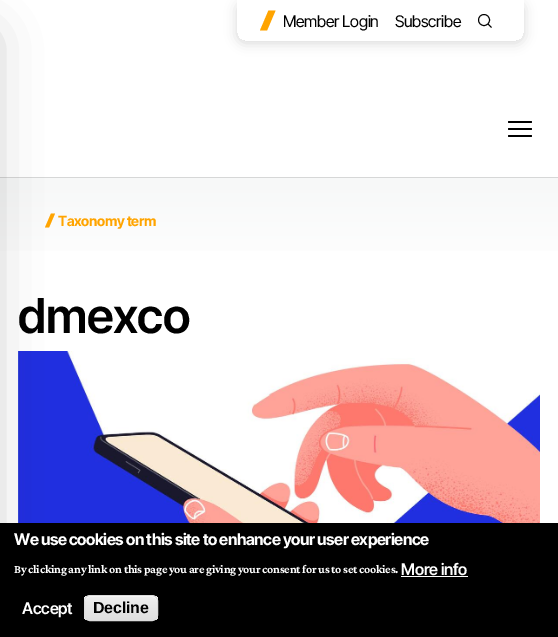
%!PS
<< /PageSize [558 637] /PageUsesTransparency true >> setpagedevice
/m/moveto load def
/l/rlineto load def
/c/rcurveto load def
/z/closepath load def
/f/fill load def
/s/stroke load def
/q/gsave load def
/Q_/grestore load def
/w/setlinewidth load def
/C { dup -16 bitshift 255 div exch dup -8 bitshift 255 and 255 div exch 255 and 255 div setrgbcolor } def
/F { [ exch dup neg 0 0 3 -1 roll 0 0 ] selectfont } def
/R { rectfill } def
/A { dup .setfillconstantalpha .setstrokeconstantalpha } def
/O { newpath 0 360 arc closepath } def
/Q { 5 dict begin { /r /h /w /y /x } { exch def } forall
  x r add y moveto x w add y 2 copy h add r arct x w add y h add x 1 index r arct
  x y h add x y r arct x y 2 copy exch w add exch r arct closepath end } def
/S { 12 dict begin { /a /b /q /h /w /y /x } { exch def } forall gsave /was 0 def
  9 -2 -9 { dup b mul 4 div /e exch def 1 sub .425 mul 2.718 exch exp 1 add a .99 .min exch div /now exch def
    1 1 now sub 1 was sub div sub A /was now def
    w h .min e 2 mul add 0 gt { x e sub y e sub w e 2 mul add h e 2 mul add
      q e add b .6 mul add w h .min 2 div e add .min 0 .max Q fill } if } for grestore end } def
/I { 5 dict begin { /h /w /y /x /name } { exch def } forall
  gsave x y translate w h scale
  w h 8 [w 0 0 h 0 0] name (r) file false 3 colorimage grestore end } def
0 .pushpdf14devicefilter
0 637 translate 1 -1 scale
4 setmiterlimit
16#FFFFFF C
0 0 558 637 R
16#D6D7D7 C
0 177 558 1 R
q 0 178 m 558 0 l 0 73 l -558 0 l z clip newpath
<< /ShadingType 2 /ColorSpace /DeviceRGB /Coords [279 178 279 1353] /Extend [true true] /Function << /FunctionType 3 /Domain [0 1] /Functions [<< /FunctionType 2 /Domain [0 1] /C0 [.969 .973 .973] /C1 [1 1 1] /N 1 >> << /FunctionType 2 /Domain [0 1] /C0 [1 1 1] /C1 [1 1 1] /N 1 >>] /Bounds [.09] /Encode [0 1 0 1] >> >> shfill Q_
16#FFA400 C
51 213.5 m 4 0 l -6 14 l -4 0 l z f
(1.rgb) 18 351 522 172 I
16#000000 C
-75 37 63 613 0 25 .25 S
q
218 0 m 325 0 l 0 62 l -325 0 l z 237 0 m 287 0 l 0 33 l 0 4.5 -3.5 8 -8 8 c -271 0 l -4.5 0 -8 -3.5 -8 -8 c z eoclip newpath
237 2 287 41 8 6 .15 S
Q_
16#FFA400 C
268.5 10.5 m 7 0 l -8.5 20 l -7 0 l z f
/InterTight-Regular 16 F
16#000000 C
283 27 m -.32 0 (Member Login) ashow
395 27 m -.32 0 (Subscribe) ashow
.9 w
484 20 5.5 O s
488 24 m 3.5 3.5 l z s
508 121 24 2 1 Q f
508 128 24 2 1 Q f
508 135 24 2 1 Q f
/InterTight-Bold 14 F
16#FFA400 C
58 226 m -.32 0 (Taxonomy term) ashow
/InterTight-SemiBold 48 F
16#000000 C
18 333 m -.48 0 (dmexco) ashow
0 523 558 114 R
/InterTight-Bold 16 F
16#FFFFFF C
14 545 m -.48 0 (We use cookies on this site to enhance your user experience) ashow
/CrimsonPro-Bold 12 F
14 573 m -.32 0 (By clicking any link on this page you are giving your consent for us to set cookies.) ashow
/InterTight-SemiBold 16 F
401 575 m -.25 0 (More info) ashow
401 576 67 1 R
22 614 m -.25 0 (Accept) ashow
q
84 595 74 26 6 Q clip newpath
q 84 596 m 74 0 l 0 24 l -74 0 l z clip newpath
<< /ShadingType 2 /ColorSpace /DeviceRGB /Coords [121 596 121 620] /Extend [true true] /Function << /FunctionType 3 /Domain [0 1] /Functions [<< /FunctionType 2 /Domain [0 1] /C0 [.929 .929 .929] /C1 [.929 .929 .929] /N 1 >> << /FunctionType 2 /Domain [0 1] /C0 [.929 .929 .929] /C1 [.875 .875 .875] /N 1 >>] /Bounds [.05] /Encode [0 1 0 1] >> >> shfill Q_
Q_
90 597 m 62 0 l 3 0 5 2 5 5 c 0 -8 -10 -6 -15 -6 c -42 0 l -5 0 -15 -2 -15 6 c 0 -3 2 -5 5 -5 c z f
16#DCDCDC C
1 w
84.5 595.5 73 25 5.5 Q s
/LiberationSans-Bold 16 F
16#000000 C
93 613 m -.25 0 (Decline) ashow
.poppdf14devicefilter showpage
